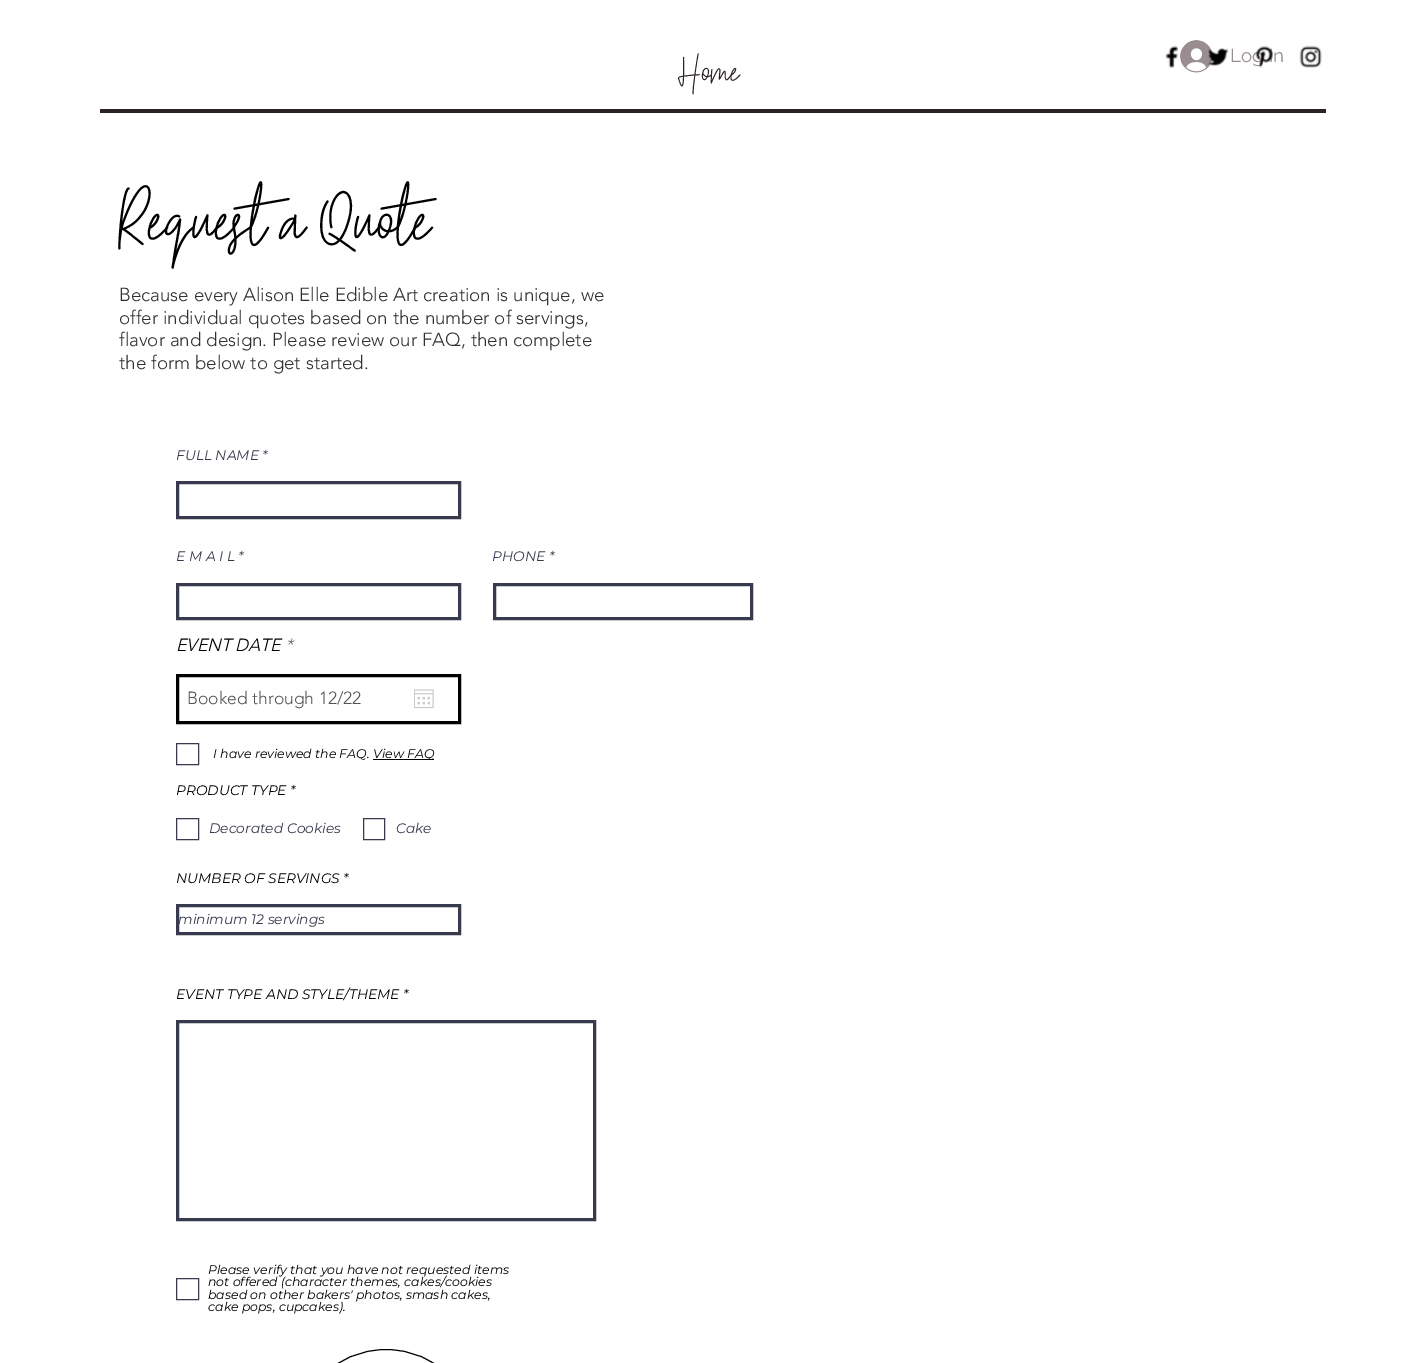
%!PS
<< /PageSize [1426 1363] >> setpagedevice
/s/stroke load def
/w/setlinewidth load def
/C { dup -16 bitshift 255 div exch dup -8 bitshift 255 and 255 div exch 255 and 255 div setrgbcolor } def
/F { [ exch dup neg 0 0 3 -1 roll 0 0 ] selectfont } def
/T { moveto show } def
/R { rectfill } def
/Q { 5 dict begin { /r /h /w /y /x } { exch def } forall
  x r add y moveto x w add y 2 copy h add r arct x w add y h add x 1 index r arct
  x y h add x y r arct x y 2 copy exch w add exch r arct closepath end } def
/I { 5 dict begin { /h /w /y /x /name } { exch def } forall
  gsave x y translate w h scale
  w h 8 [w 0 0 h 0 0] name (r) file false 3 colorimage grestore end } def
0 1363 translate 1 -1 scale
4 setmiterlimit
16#FFFFFF C
0 0 1426 1363 R
(1.rgb) 1165 45 13 23 I
(5.rgb) 1180 40 33 33 I
(2.rgb) 1208 48 21 19 I
/Raleway-Regular 18.75 F
16#998D8F C
(Log In) 1230 62 T
(3.rgb) 1255 45 18 23 I
(4.rgb) 1299 45 23 23 I
/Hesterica-Regular 38 F
16#292325 C
(Home) 680 76 T
100 109 1226 4 R
/Hesterica-Regular 76.25 F
16#000000 C
(Request a Quote) 119 230 T
/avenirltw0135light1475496-Light 18.75 F
16#332F30 C
(Because every Alison Elle Edible Art creation is unique, we) 119 301 T
(offer individual quotes based on the number of servings,) 119 324 T
(flavor and design. Please review our FAQ, then complete) 119 346 T
(the form below to get started.) 119 369 T
/Montserrat-Italic 13.75 F
16#373B4D C
(FULL NAME *) 176 460 T
3 w
177.5 482.5 282 35 rectstroke
(E M A I L *) 176 561 T
177.5 584.5 282 34 rectstroke
(PHONE *) 492 561 T
494.5 584.5 257 34 rectstroke
/avenirltw0135light1475496-LightItalic 17.5 F
16#000000 C
(EVENT DATE) 176 651 T
16#61615F C
(*) 285 651 T
16#000000 C
177.5 675.5 282 47 rectstroke
/avenirltw0135light1475496-Light 17.5 F
16#525252 C
(Booked through 12/22) 187 704 T
(6.rgb) 414 689 20 20 I
16#373B4D C
1 w
176.5 743.5 22 21 rectstroke
/Montserrat-Italic 12.5 F
16#000000 C
(I have reviewed the FAQ.) 213 758 T
373 759 61 1 R
(View FAQ) 373 758 T
/Montserrat-Italic 13.75 F
(PRODUCT TYPE *) 176 795 T
16#373B4D C
176.5 818.5 22 21 rectstroke
(Decorated Cookies) 209 833 T
363.5 818.5 21 21 rectstroke
(Cake) 396 833 T
16#000000 C
(NUMBER OF SERVINGS *) 176 883 T
16#373B4D C
3 w
177.5 905.5 282 28 rectstroke
(minimum 12 servings) 178 924 T
16#000000 C
(EVENT TYPE AND STYLE/THEME *) 176 999 T
16#373B4D C
177.5 1021.5 417 198 rectstroke
1 w
176.5 1278.5 22 21 rectstroke
/Montserrat-Italic 12.5 F
16#000000 C
(Please verify that you have not requested items) 208 1274 T
(not offered \(character themes, cakes/cookies) 208 1286 T
(based on other bakers' photos, smash cakes,) 208 1299 T
(cake pops, cupcakes\).) 208 1311 T
294.5 1349.5 183 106 91.5 Q s
showpage
